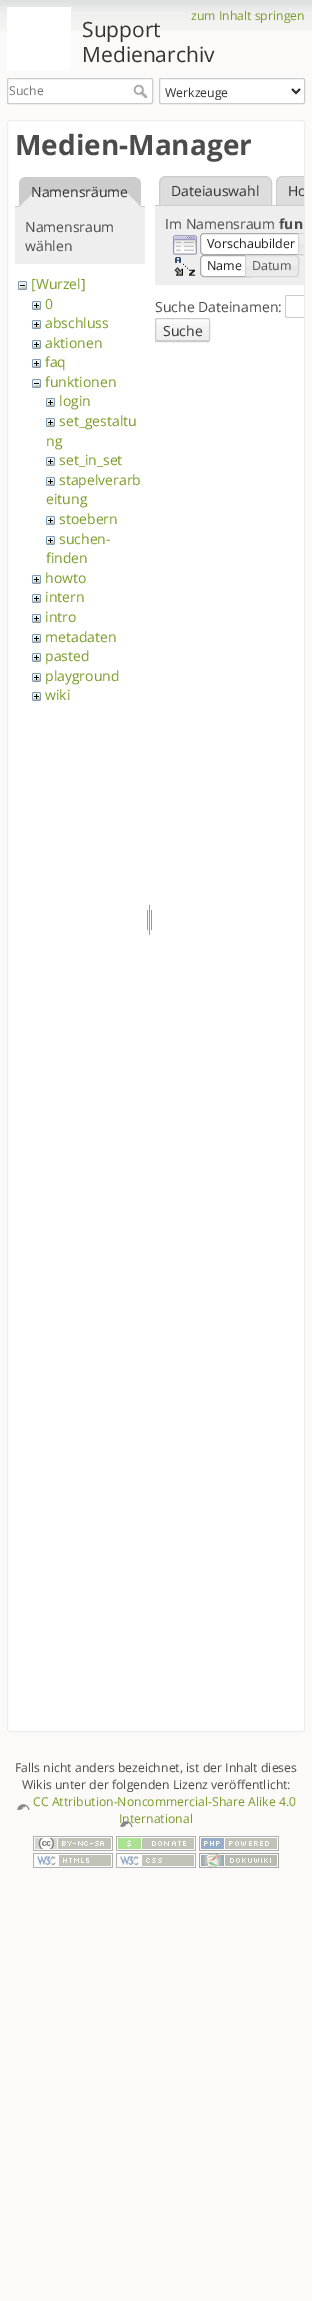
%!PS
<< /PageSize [312 2301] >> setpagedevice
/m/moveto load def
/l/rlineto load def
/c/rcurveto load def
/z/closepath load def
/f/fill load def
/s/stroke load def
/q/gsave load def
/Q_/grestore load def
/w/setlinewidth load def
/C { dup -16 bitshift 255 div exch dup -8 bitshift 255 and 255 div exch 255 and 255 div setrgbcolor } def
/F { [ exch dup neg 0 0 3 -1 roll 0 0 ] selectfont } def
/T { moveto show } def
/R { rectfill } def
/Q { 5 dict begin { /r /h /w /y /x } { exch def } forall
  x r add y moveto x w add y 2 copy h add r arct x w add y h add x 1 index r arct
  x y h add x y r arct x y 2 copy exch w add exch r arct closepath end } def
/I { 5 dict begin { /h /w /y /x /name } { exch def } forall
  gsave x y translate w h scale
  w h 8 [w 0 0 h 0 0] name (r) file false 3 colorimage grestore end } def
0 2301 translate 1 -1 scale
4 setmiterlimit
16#FBFAF9 C
0 0 312 2301 R
(1.rgb) 0 0 312 31 I
/OpenSans-Regular 12.25 F
16#7A9D29 C
(zum Inhalt springen) 191 20 T
16#FFFFFF C
7 7 64 64 R
/OpenSans-Regular 21 F
16#333333 C
(Support) 82 37 T
(Medienarchiv) 82 62 T
16#FFFFFF C
7.5 78.5 145 25 1.5 Q q f Q_
16#CCCCCC C
s
/OpenSans-Regular 12.25 F
16#757575 C
(Suche) 9 95 T
(2.rgb) 133 84 14 14 I
16#FFFFFF C
159.5 78.5 145 25 1.5 Q q f Q_
16#CCCCCC C
s
16#333333 C
2 w
292 89 m 4 4 l 4 -4 l s
(Werkzeuge) 165 97 T
16#FFFFFF C
7.5 120.5 297 1611 2.5 Q q f Q_
16#EEEEEE C
1 w
s
/OpenSans-Bold 28 F
16#4C4C4C C
(Medien-Manager) 15 155 T
16#CCCCCC C
15 206 130 1 R
16#EEEEEE C
26 177 m 108 0 l 4 0 7 3 7 7 c 0 23 l -122 0 l 0 -23 l 0 -4 3 -7 7 -7 c z f
16#CCCCCC C
26 177 m 109 0 l 4 2 l -13 13 l -92 0 l -13 -13 l 1 -1 3 -2 5 -2 c z f
139 179 m -13 13 l 15 15 l 0 -23 l 0 -2 -1 -4 -2 -5 c z f
16#EEEEEE C
141 207 m -15 -15 l -92 0 l -15 15 l z f
16#CCCCCC C
19 207 m 0 -23 l 0 -2 1 -4 2 -5 c 13 13 l z f
/OpenSans-Regular 14 F
16#333333 C
(Namensräume) 31 197 T
16#EEEEEE C
15 207 130 57 R
16#4C4C4C C
(Namensraum) 25 232 T
(wählen) 25 251 T
(3.rgb) 18 281 9 9 I
16#7A9D29 C
([Wurzel]) 31 289 T
(4.rgb) 32 301 9 9 I
(0) 45 309 T
(4.rgb) 32 320 9 9 I
(abschluss) 45 328 T
(4.rgb) 32 340 9 9 I
(aktionen) 45 348 T
(4.rgb) 32 359 9 9 I
(faq) 45 367 T
(3.rgb) 32 379 9 9 I
(funktionen) 45 387 T
(4.rgb) 46 398 9 9 I
(login) 59 406 T
(4.rgb) 46 418 9 9 I
(set_gestaltu) 59 426 T
(ng) 46 446 T
(4.rgb) 46 457 9 9 I
(set_in_set) 59 465 T
(4.rgb) 46 477 9 9 I
(stapelverarb) 59 485 T
(eitung) 46 504 T
(4.rgb) 46 516 9 9 I
(stoebern) 59 524 T
(4.rgb) 46 536 9 9 I
(suchen-) 59 544 T
(finden) 46 563 T
(4.rgb) 32 575 9 9 I
(howto) 45 583 T
(4.rgb) 32 594 9 9 I
(intern) 45 602 T
(4.rgb) 32 614 9 9 I
(intro) 45 622 T
(4.rgb) 32 634 9 9 I
(metadaten) 45 642 T
(4.rgb) 32 653 9 9 I
(pasted) 45 661 T
(4.rgb) 32 673 9 9 I
(playground) 45 681 T
(4.rgb) 32 692 9 9 I
(wiki) 45 700 T
(5.rgb) 147 904 5 31 I
16#DDDDDD C
166 176.5 m 99 0 l 3.5 0 6.5 3 6.5 6.5 c 0 22.5 l -112 0 l 0 -22.5 l 0 -3.5 3 -6.5 6.5 -6.5 c z q f Q_
16#CCCCCC C
s
16#333333 C
(Dateiauswahl) 171 196 T
16#DDDDDD C
283 176 m 21 0 l 0 30 l -28 0 l 0 -23 l 0 -4 3 -7 7 -7 c z f
16#CCCCCC C
283 176 m -4 0 -7 3 -7 7 c 0 23 l 28 0 l 0 -1 l -27 0 l 0 -22 l 0 -3.5 2.5 -6 6 -6 c 21 0 l 0 -1 l z f
q
8 121 296 1610 2 Q clip newpath
16#333333 C
(Ho) 288 196 T
Q_
155 205 121 1 R
16#EEEEEE C
155 206 149 79 R
16#4C4C4C C
(Im Namensraum) 165 229 T
/OpenSans-Bold 14 F
(fun) 279 229 T
(6.rgb) 173 235 24 20 I
16#FFFFFF C
200 233 98 22 R
16#AAAAAA C
204 233.5 m 98.5 0 l 0 21 l -98.5 0 l -2 0 -3.5 -1.5 -3.5 -3.5 c 0 -14 l 0 -2 1.5 -3.5 3.5 -3.5 c z s
/OpenSans-Regular 12.5 F
16#212121 C
(Vorschaubilder) 207 248 T
(7.rgb) 299 234 5 20 I
16#D3D3D3 C
298 233 m 0 22 l 6 0 l 0 -1 l -5 0 l 0 -20 l 5 0 l 0 -1 l z f
(8.rgb) 174 257 21 19 I
16#FFFFFF C
200 255 45 22 R
16#AAAAAA C
204 255.5 m 45.5 0 l 0 21 l -45.5 0 l -2 0 -3.5 -1.5 -3.5 -3.5 c 0 -14 l 0 -2 1.5 -3.5 3.5 -3.5 c z s
16#212121 C
(Name) 207 270 T
(9.rgb) 246 255 53 22 I
16#D3D3D3 C
245.5 255.5 m 49.5 0 l 2 0 3.5 1.5 3.5 3.5 c 0 14 l 0 2 -1.5 3.5 -3.5 3.5 c -49.5 0 l z s
16#555555 C
(Datum) 252 270 T
/OpenSans-Regular 14 F
16#4C4C4C C
(Suche Dateinamen:) 155 312 T
16#CCCCCC C
287 295 m -1 0 -2 1 -2 2 c 0 19 l 0 1 1 2 2 2 c 17 0 l 0 -1 l -17 0 l -.5 0 -1 -.5 -1 -1 c 0 -19 l 0 -.5 .5 -1 1 -1 c 17 0 l 0 -1 l z f
q
155 318 55 24 2 Q clip newpath
q 155 319 m 55 0 l 0 22 l -55 0 l z clip newpath
<< /ShadingType 2 /ColorSpace /DeviceRGB /Coords [183 319 183 341] /Extend [true true] /Function << /FunctionType 3 /Domain [0 1] /Functions [<< /FunctionType 2 /Domain [0 1] /C0 [1 1 1] /C1 [.957 .957 .957] /N 1 >> << /FunctionType 2 /Domain [0 1] /C0 [.957 .957 .957] /C1 [.933 .933 .933] /N 1 >> << /FunctionType 2 /Domain [0 1] /C0 [.8 .8 .8] /C1 [.8 .8 .8] /N 1 >>] /Bounds [.3 .99] /Encode [0 1 0 1 0 1] >> >> shfill Q_
Q_
155.5 318.5 54 23 1.5 Q s
16#333333 C
(Suche) 163 336 T
/OpenSans-Regular 12.25 F
16#4C4C4C C
(Falls nicht anders bezeichnet, ist der Inhalt dieses) 15 1772 T
(Wikis unter der folgenden Lizenz veröffentlicht:) 22 1789 T
(10.rgb) 17 1804 116 23 I
16#7A9D29 C
(CC Attribution-Noncommercial-Share Alike 4.0) 33 1806 T
(International) 119 1823 T
(11.rgb) 33 1836 80 15 I
(12.rgb) 116 1836 80 15 I
(13.rgb) 199 1836 80 15 I
(14.rgb) 33 1853 80 15 I
(15.rgb) 116 1853 80 15 I
(16.rgb) 199 1853 80 15 I
showpage
